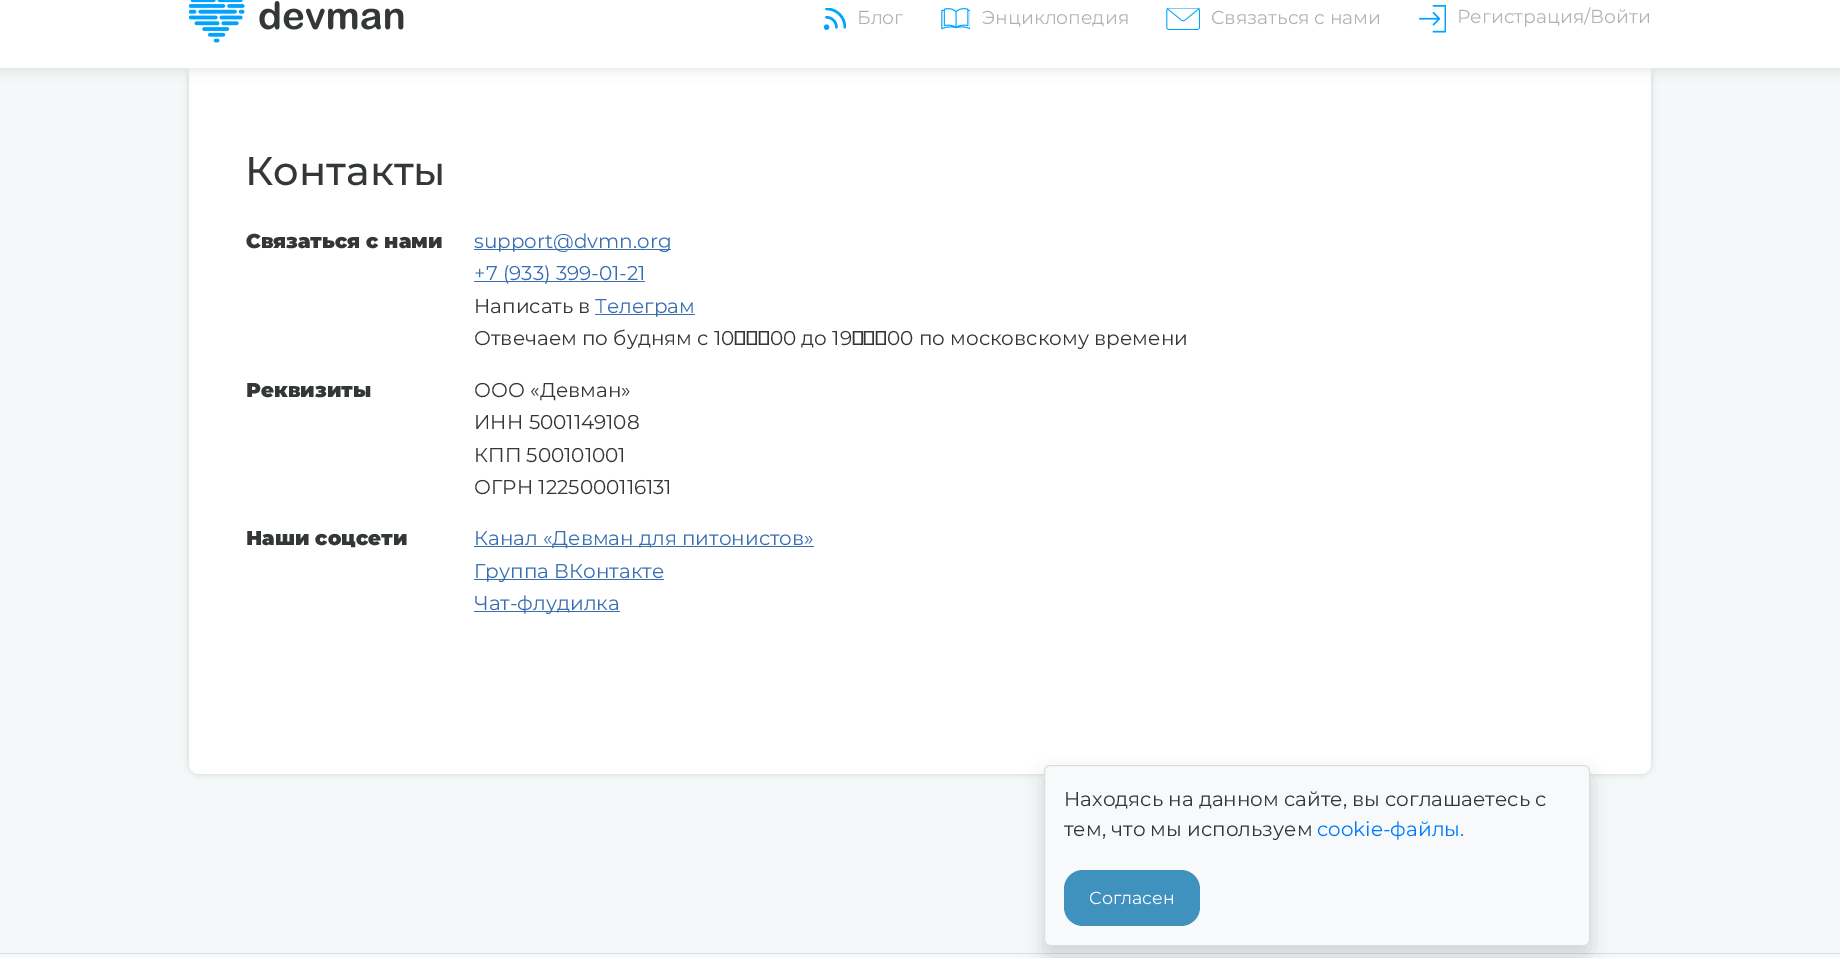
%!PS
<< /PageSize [1840 958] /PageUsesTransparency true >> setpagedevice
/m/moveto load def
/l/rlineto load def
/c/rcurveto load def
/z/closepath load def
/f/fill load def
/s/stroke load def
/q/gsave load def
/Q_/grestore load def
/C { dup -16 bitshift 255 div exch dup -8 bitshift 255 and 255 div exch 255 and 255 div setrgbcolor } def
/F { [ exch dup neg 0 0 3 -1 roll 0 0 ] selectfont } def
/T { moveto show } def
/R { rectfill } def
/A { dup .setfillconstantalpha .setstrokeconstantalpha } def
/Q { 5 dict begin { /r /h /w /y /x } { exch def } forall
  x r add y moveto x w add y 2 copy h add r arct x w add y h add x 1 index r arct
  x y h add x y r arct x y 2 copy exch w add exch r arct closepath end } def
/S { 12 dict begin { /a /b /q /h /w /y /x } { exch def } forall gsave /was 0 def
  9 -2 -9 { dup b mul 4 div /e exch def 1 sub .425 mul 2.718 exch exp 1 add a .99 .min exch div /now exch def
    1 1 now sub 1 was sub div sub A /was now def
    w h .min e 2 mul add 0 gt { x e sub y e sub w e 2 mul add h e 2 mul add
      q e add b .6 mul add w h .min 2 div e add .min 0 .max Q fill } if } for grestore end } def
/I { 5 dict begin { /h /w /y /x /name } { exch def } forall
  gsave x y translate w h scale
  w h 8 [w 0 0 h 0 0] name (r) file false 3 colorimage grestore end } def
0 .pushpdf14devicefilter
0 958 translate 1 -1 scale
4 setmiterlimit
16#F4F8F9 C
0 0 1840 958 R
16#000000 C
189 68 1462 706 10 3 .16 S
16#FFFFFF C
189 68 m 1462 0 l 0 696 l 0 5.5 -4.5 10 -10 10 c -1442 0 l -5.5 0 -10 -4.5 -10 -10 c z f
16#000000 C
0 -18 1840 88 0 6 .1 S
16#FFFFFF C
0 0 1840 68 R
(1.rgb) 189 0 215 43 I
(2.rgb) 824 8 22 22 I
/Montserrat-Regular 18.75 F
16#B2B2B2 C
(Блог) 857 24 T
(3.rgb) 941 8 29 22 I
(Энциклопедия) 982 24 T
(4.rgb) 1166 8 34 22 I
(Связаться с нами) 1211 24 T
(5.rgb) 1419 5 27 28 I
(Регистрация/Войти) 1457 23 T
/Montserrat-Medium 40 F
16#343738 C
(Контакты) 245 185 T
/Montserrat-Black 20 F
(Связаться с нами) 246 248 T
16#3A6EB2 C
474 249 197 1 R
/Montserrat-Regular 20 F
(support@dvmn.org) 474 248 T
474 281 171 1 R
(+7 \(933\) 399-01-21) 474 280 T
16#343738 C
(Написать в) 474 313 T
16#3A6EB2 C
595 314 100 1 R
(Телеграм) 595 313 T
16#343738 C
(Отвечаем по будням с 10‑00 до 19‑00 по московскому времени) 474 345 T
/Montserrat-Black 20 F
(Реквизиты) 246 397 T
/Montserrat-Regular 20 F
(ООО «Девман») 474 397 T
(ИНН 5001149108) 474 429 T
(КПП 500101001) 474 462 T
(ОГРН 1225000116131) 474 494 T
/Montserrat-Black 20 F
(Наши соцсети) 246 545 T
16#3A6EB2 C
474 546 340 1 R
/Montserrat-Regular 20 F
(Канал «Девман для питонистов») 474 545 T
474 579 190 1 R
(Группа ВКонтакте) 474 578 T
474 611 146 1 R
(Чат-флудилка) 474 610 T
16#DCDFE0 C
0 953 1840 1 R
16#000000 C
1044 775 546 181 6 10 .15 S
16#F8F9FA C
1044.5 765.5 545 180 5.5 Q q f Q_
16#DDDDDD C
s
16#343738 C
(Находясь на данном сайте, вы соглашаетесь с) 1064 806 T
(тем, что мы используем) 1064 836 T
16#007BFF C
(cookie-файлы.) 1317 836 T
16#3F91BE C
1064 870 136 56 19 Q f
/Montserrat-Regular 17.5 F
16#FFFFFF C
(Согласен) 1089 904 T
.poppdf14devicefilter showpage
